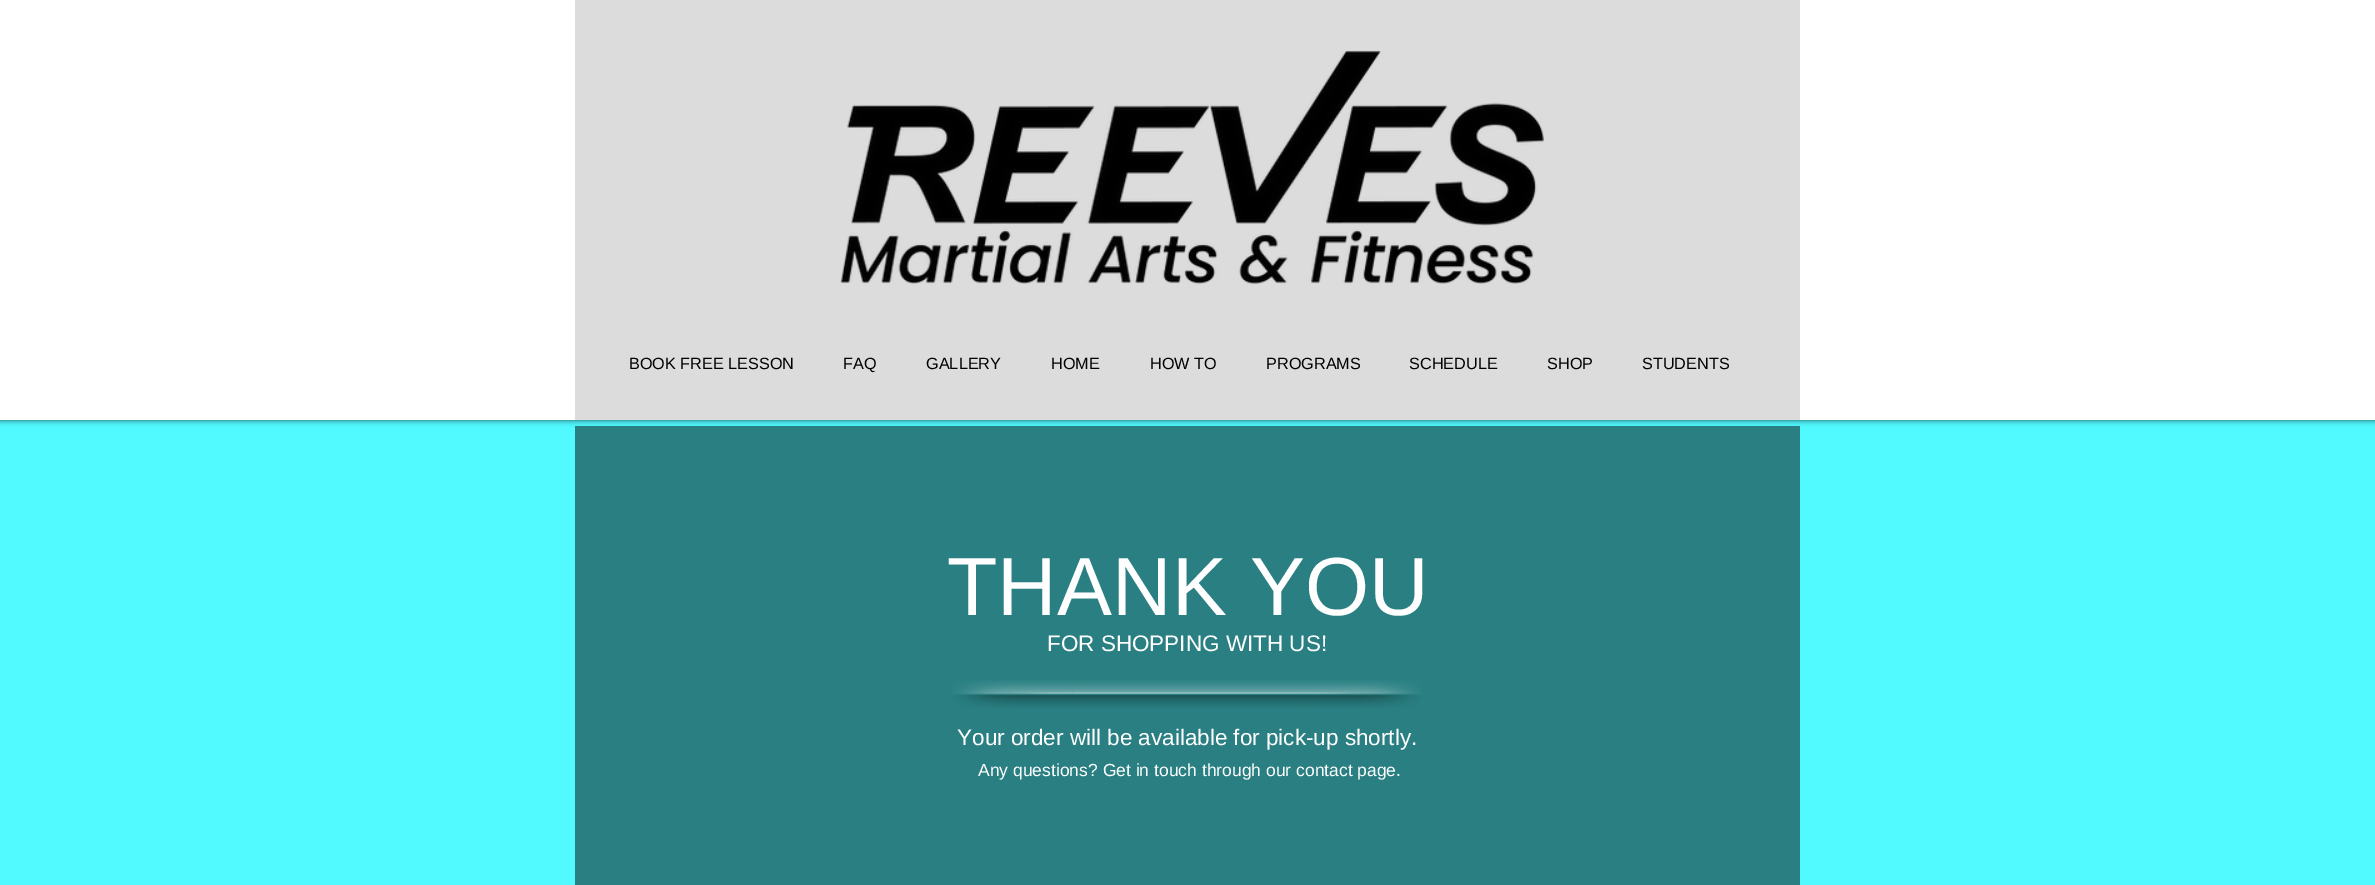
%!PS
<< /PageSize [2375 885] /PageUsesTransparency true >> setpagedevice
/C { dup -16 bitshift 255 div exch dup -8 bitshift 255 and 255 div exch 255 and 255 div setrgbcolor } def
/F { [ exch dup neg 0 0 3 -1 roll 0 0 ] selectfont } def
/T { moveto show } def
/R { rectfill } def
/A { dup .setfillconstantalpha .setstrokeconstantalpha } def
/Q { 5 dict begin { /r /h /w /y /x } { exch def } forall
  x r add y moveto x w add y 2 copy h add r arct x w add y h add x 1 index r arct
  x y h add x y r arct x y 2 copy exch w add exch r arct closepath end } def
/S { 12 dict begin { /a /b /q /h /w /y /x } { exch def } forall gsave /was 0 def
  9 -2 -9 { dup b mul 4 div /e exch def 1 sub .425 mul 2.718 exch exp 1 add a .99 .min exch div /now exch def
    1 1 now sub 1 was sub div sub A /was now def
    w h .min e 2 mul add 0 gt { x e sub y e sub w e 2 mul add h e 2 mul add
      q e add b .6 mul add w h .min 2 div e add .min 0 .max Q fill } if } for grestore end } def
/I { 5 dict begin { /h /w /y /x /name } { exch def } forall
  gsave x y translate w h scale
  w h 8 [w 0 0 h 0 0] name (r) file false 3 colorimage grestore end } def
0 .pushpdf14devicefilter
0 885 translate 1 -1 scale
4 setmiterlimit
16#50FAFE C
0 0 2375 885 R
16#297F82 C
575 426 1225 459 R
16#000000 C
0 0 2375 420 0 3 .7 S
16#FFFFFF C
0 0 2375 420 R
16#DDDCDC C
575 0 1225 420 R
(1.rgb) 840 50 704 234 I
/LiberationSans-Regular 16.25 F
16#000000 C
(BOOK FREE LESSON) 629 369 T
(FAQ) 843 369 T
(GALLERY) 926 369 T
(HOME) 1051 369 T
(HOW TO) 1150 369 T
(PROGRAMS) 1266 369 T
(SCHEDULE) 1409 369 T
(SHOP) 1547 369 T
(STUDENTS) 1642 369 T
/LiberationSans-Regular 82.5 F
16#FFFFFF C
(THANK YOU) 947 615 T
/LiberationSans-Regular 22.5 F
(FOR SHOPPING WITH US!) 1047 651 T
(3.rgb) 1072 680 230 28 I
(2.rgb) 952 680 121 28 I
(4.rgb) 1301 680 120 28 I
(Your order will be available for pick-up shortly.) 957 745 T
/LiberationSans-Regular 17.5 F
(Any questions? Get in touch through our contact page.) 978 776 T
.poppdf14devicefilter showpage
